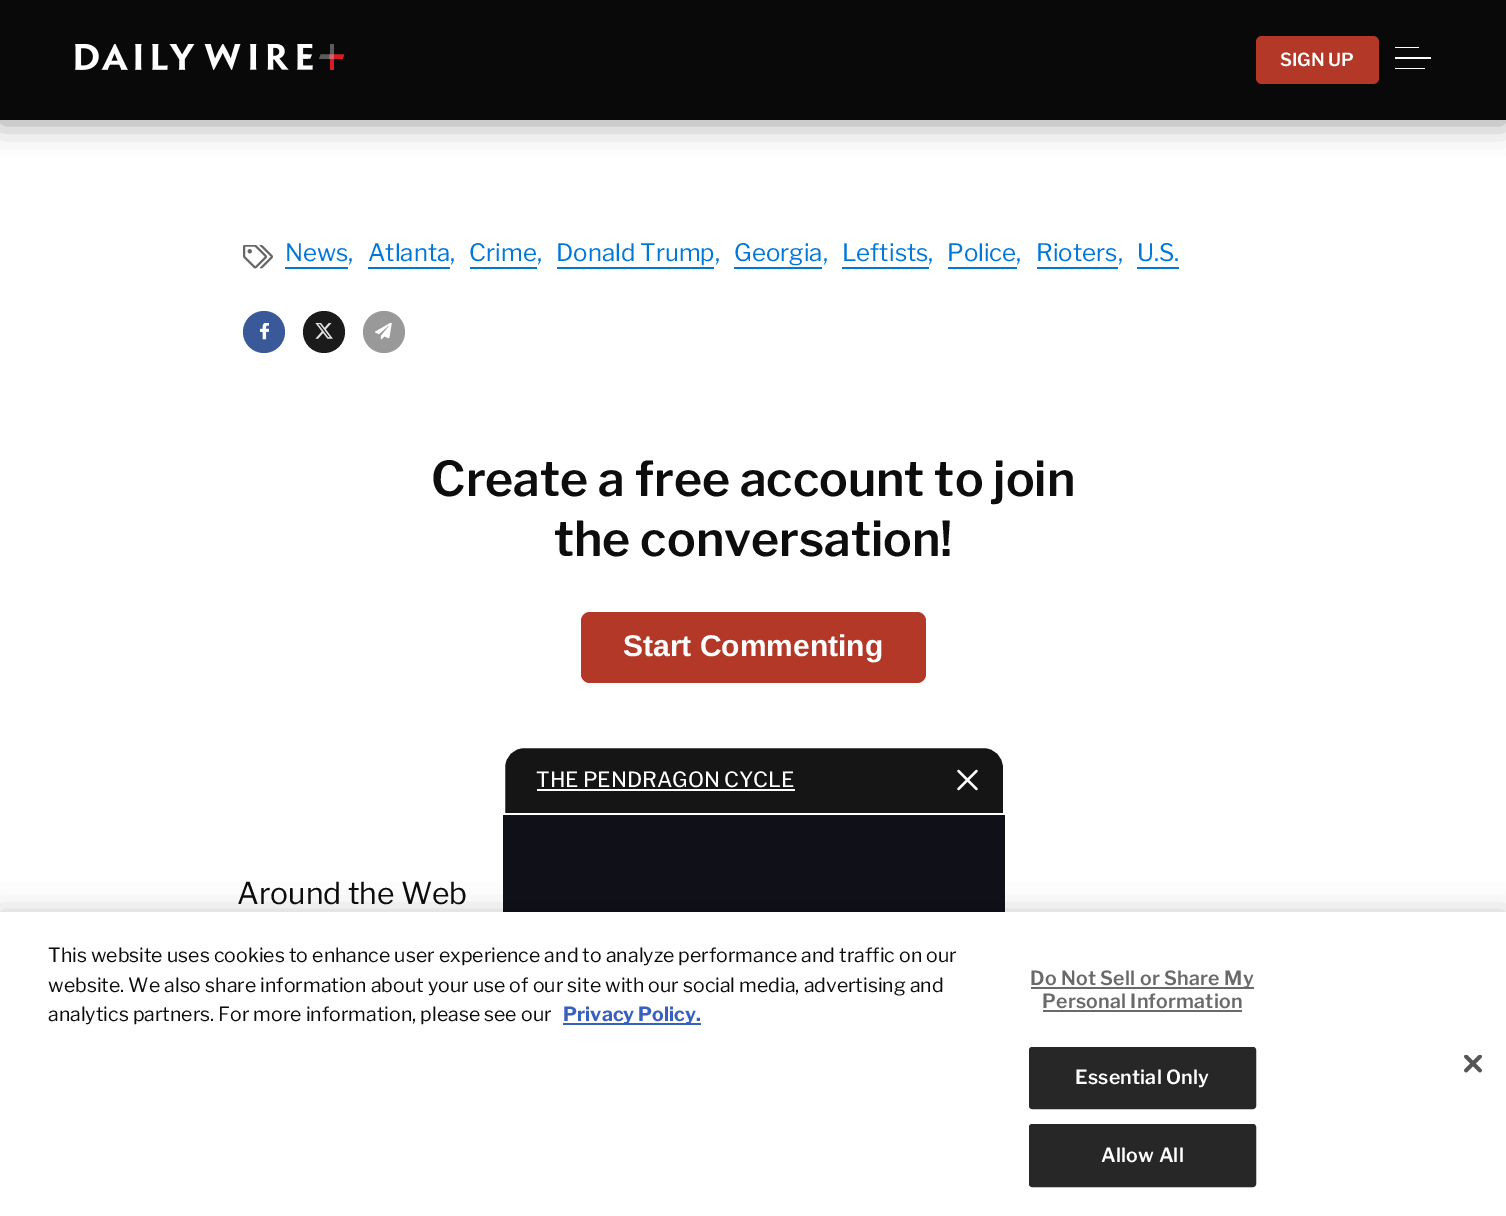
%!PS
<< /PageSize [1506 1216] /PageUsesTransparency true >> setpagedevice
/m/moveto load def
/l/rlineto load def
/c/rcurveto load def
/z/closepath load def
/f/fill load def
/s/stroke load def
/q/gsave load def
/Q_/grestore load def
/w/setlinewidth load def
/C { dup -16 bitshift 255 div exch dup -8 bitshift 255 and 255 div exch 255 and 255 div setrgbcolor } def
/F { [ exch dup neg 0 0 3 -1 roll 0 0 ] selectfont } def
/T { moveto show } def
/R { rectfill } def
/A { dup .setfillconstantalpha .setstrokeconstantalpha } def
/O { newpath 0 360 arc closepath } def
/Q { 5 dict begin { /r /h /w /y /x } { exch def } forall
  x r add y moveto x w add y 2 copy h add r arct x w add y h add x 1 index r arct
  x y h add x y r arct x y 2 copy exch w add exch r arct closepath end } def
/S { 12 dict begin { /a /b /q /h /w /y /x } { exch def } forall gsave /was 0 def
  9 -2 -9 { dup b mul 4 div /e exch def 1 sub .425 mul 2.718 exch exp 1 add a .99 .min exch div /now exch def
    1 1 now sub 1 was sub div sub A /was now def
    w h .min e 2 mul add 0 gt { x e sub y e sub w e 2 mul add h e 2 mul add
      q e add b .6 mul add w h .min 2 div e add .min 0 .max Q fill } if } for grestore end } def
/I { 5 dict begin { /h /w /y /x /name } { exch def } forall
  gsave x y translate w h scale
  w h 8 [w 0 0 h 0 0] name (r) file false 3 colorimage grestore end } def
0 .pushpdf14devicefilter
0 1216 translate 1 -1 scale
4 setmiterlimit
16#FFFFFF C
0 0 1506 1216 R
16#000000 C
0 3 1506 120 0 15 .4 S
16#0A0909 C
0 0 1506 120 R
(1.rgb) 75 44 270 26 I
16#B33828 C
1256 36 123 48 6 Q f
/LibreFranklin-SemiBold 18 F
16#FFFFFF C
(SIGN UP) 1280 66 T
1395 47 24 1 R
1395 57 36 2 R
1395 68 30 1 R
(2.rgb) 243 245 30 24 I
/LibreFranklin-Regular 24 F
16#0077D9 C
(News,) 285 261 T
285 267 63 2 R
(Atlanta,) 368 261 T
368 267 82 2 R
(Crime,) 469 261 T
470 267 67 2 R
(Donald Trump,) 556 261 T
557 267 157 2 R
(Georgia,) 734 261 T
734 267 88 2 R
(Leftists,) 842 261 T
842 267 87 2 R
(Police,) 947 261 T
948 267 69 2 R
(Rioters,) 1036 261 T
1037 267 81 2 R
(U.S.) 1137 261 T
1137 267 42 2 R
16#3A5999 C
264 332 21 O f
(3.rgb) 260 323 9 17 I
16#1B1B1B C
324 332 21 O f
(4.rgb) 315 323 18 16 I
16#999999 C
384 332 21 O f
(5.rgb) 375 323 17 17 I
/LibreFranklin-SemiBold 48 F
16#0D0D0D C
(Create a free account to join) 431 496 T
(the conversation!) 554 556 T
16#B33828 C
581 612 345 71 9 Q f
/LiberationSans-Bold 30 F
16#FFFFFF C
(Start Commenting) 623 656 T
/LibreFranklin-Regular 30 F
16#0D0D0D C
(Around the Web) 237 904 T
16#151515 C
524 747 m 460 0 l 11 0 20 9 20 20 c 0 47 l -500 0 l 0 -47 l 0 -11 9 -20 20 -20 c z q f Q_
16#FFFFFF C
2 w
s
/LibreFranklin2-Regular 21 F
(THE PENDRAGON CYCLE) 536 787 T
537 789 258 2 R
2.2 w
1 setlinecap
1 setlinejoin
976.5 789 m -18 -18 l 958.5 789 m 18 -18 l s
16#000000 C
503 815 502 97 R
0.8 A
16#14141E C
503 815 502 97 R
1 A
16#000000 C
0 912 1506 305 0 13.5 .2 S
16#FFFFFF C
0 912 1506 304 R
/LibreFranklin-Regular 19.5 F
16#0D0D0D C
(This website uses cookies to enhance user experience and to analyze performance and traffic on our) 48 962 T
(website. We also share information about your use of our site with our social media, advertising and) 48 992 T
(analytics partners. For more information, please see our) 48 1021 T
16#3860BE C
563 1023 138 2 R
/LibreFranklin-Bold 19.5 F
(Privacy Policy.) 563 1021 T
16#696969 C
1031 987 223 2 R
/LibreFranklin-SemiBold 19.5 F
1030 985 m .2 0 (Do Not Sell or Share My) ashow
1042 1008 m .2 0 (Personal Information) ashow
1043 1010 199 2 R
16#272727 C
1030 1048 225 60 2 Q q f Q_
2 w
0 setlinecap
0 setlinejoin
s
16#FFFFFF C
1075 1084 m .2 0 (Essential Only) ashow
16#272727 C
1030 1125 225 61 2 Q q f Q_
s
16#FFFFFF C
1101 1162 m .2 0 (Allow All) ashow
(6.rgb) 1464 1055 18 18 I
.poppdf14devicefilter showpage
